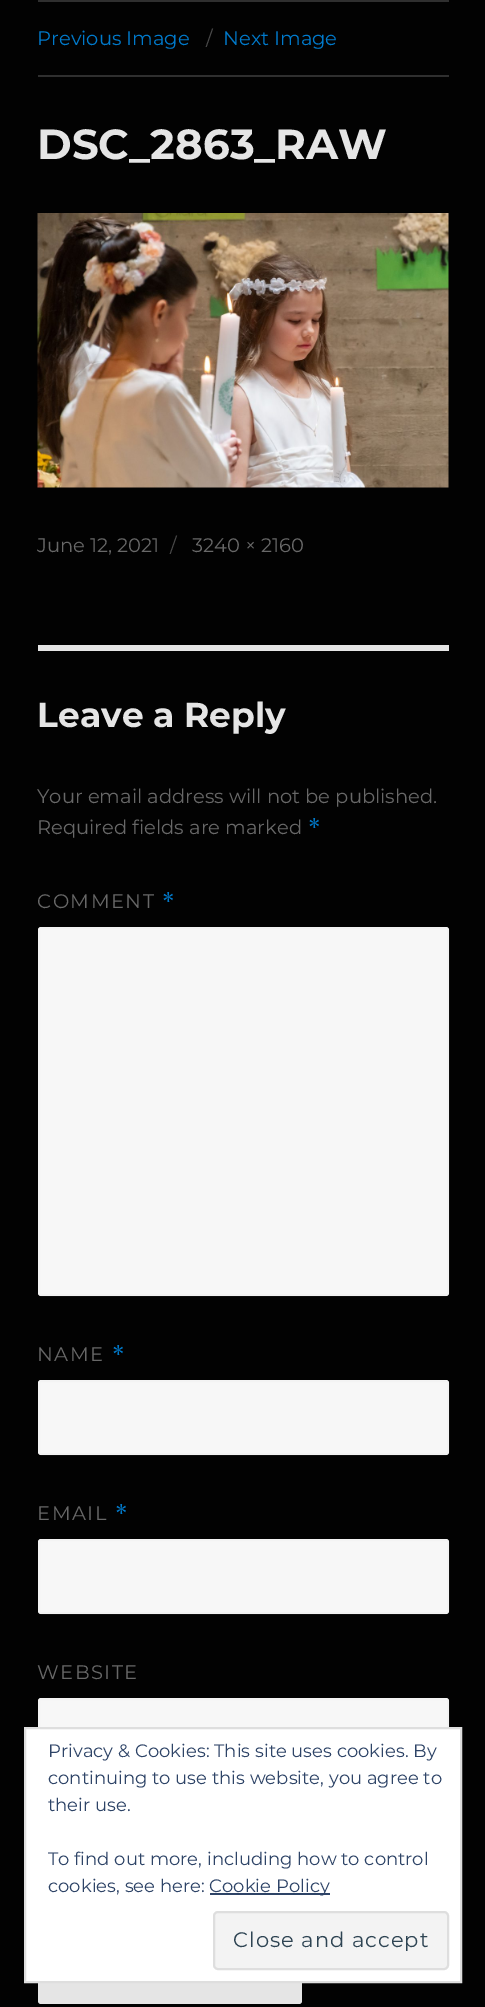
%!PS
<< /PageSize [485 2007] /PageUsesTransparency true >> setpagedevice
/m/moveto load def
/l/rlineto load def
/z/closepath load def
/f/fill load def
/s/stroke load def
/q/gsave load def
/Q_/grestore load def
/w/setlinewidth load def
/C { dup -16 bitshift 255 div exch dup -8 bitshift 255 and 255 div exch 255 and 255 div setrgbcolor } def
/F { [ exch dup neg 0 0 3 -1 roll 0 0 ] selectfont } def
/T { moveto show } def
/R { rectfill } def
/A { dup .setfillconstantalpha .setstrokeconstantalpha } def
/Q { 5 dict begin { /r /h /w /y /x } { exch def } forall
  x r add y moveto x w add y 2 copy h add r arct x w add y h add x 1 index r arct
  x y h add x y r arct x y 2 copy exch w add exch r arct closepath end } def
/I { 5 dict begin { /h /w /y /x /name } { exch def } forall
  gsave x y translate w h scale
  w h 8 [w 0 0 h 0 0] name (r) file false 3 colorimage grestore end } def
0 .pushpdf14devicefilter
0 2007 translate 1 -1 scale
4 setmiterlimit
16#020202 C
0 0 485 2007 R
16#2F2F2F C
38 0 411 2 R
38 75 411 2 R
/Montserrat-Regular 19.5 F
16#007ACC C
(Previous Image) 37 45 T
16#494949 C
(/) 206 45 T
16#007ACC C
(Next Image) 223 45 T
/Montserrat-Bold 42 F
16#E5E5E5 C
(DSC_2863_RAW) 37 159 T
(1.rgb) 37 213 412 275 I
/Montserrat-Regular 19.5 F
16#686868 C
(June 12, 2021) 37 552 T
16#494949 C
(/) 170 552 T
16#686868 C
(3240 × 2160) 192 552 T
16#E5E5E5 C
38 645 411 6 R
/Montserrat-Bold 34.5 F
(Leave a Reply) 37 727 T
/Montserrat-Regular 19.5 F
16#686868 C
(Your email address will not be published.) 37 803 T
(Required fields are marked) 37 834 T
/Merriweather-Regular 19.5 F
16#007ACC C
(*) 308 834 T
/Montserrat-Regular 19.5 F
16#686868 C
37 908 m 1.5 0 (COMMENT) ashow
/Merriweather-Regular 19.5 F
16#007ACC C
162 908 m 1.5 0 (*) ashow
16#F7F7F7 C
38 927 411 369 3 Q f
0.2 A
16#E5E5E5 C
2 w
39 928 409 367 2 Q s
/Montserrat-Regular 19.5 F
1 A
16#686868 C
37 1361 m 1.5 0 (NAME) ashow
/Merriweather-Regular 19.5 F
16#007ACC C
112 1361 m 1.5 0 (*) ashow
16#F7F7F7 C
38 1380 411 75 3 Q f
0.2 A
16#E5E5E5 C
39 1381 409 73 2 Q s
/Montserrat-Regular 19.5 F
1 A
16#686868 C
37 1520 m 1.5 0 (EMAIL) ashow
/Merriweather-Regular 19.5 F
16#007ACC C
115 1520 m 1.5 0 (*) ashow
16#F7F7F7 C
38 1539 411 75 3 Q f
0.2 A
16#E5E5E5 C
39 1540 409 73 2 Q s
/Montserrat-Regular 19.5 F
1 A
16#686868 C
37 1679 m 1.5 0 (WEBSITE) ashow
16#F7F7F7 C
38 1698 411 75 3 Q f
0.2 A
16#E5E5E5 C
39 1699 409 73 2 Q s
1 A
38 1941 264 63 3 Q f
16#FFFFFF C
25 1728 m 436 0 l 0 254 l -436 0 l z q f Q_
16#DEDEDE C
s
/Montserrat-Regular 18 F
16#2E4467 C
(Privacy & Cookies: This site uses cookies. By) 48 1757 T
(continuing to use this website, you agree to) 48 1784 T
(their use.) 48 1811 T
(To find out more, including how to control) 48 1865 T
(cookies, see here:) 48 1892 T
210 1893 120 2 R
(Cookie Policy) 209 1892 T
16#F3F3F3 C
214 1912 234 57 4 Q q f Q_
16#DEDEDE C
s
/Montserrat-Regular 21 F
16#2E4453 C
233 1947 m 1 0 (Close and accept) ashow
.poppdf14devicefilter showpage
